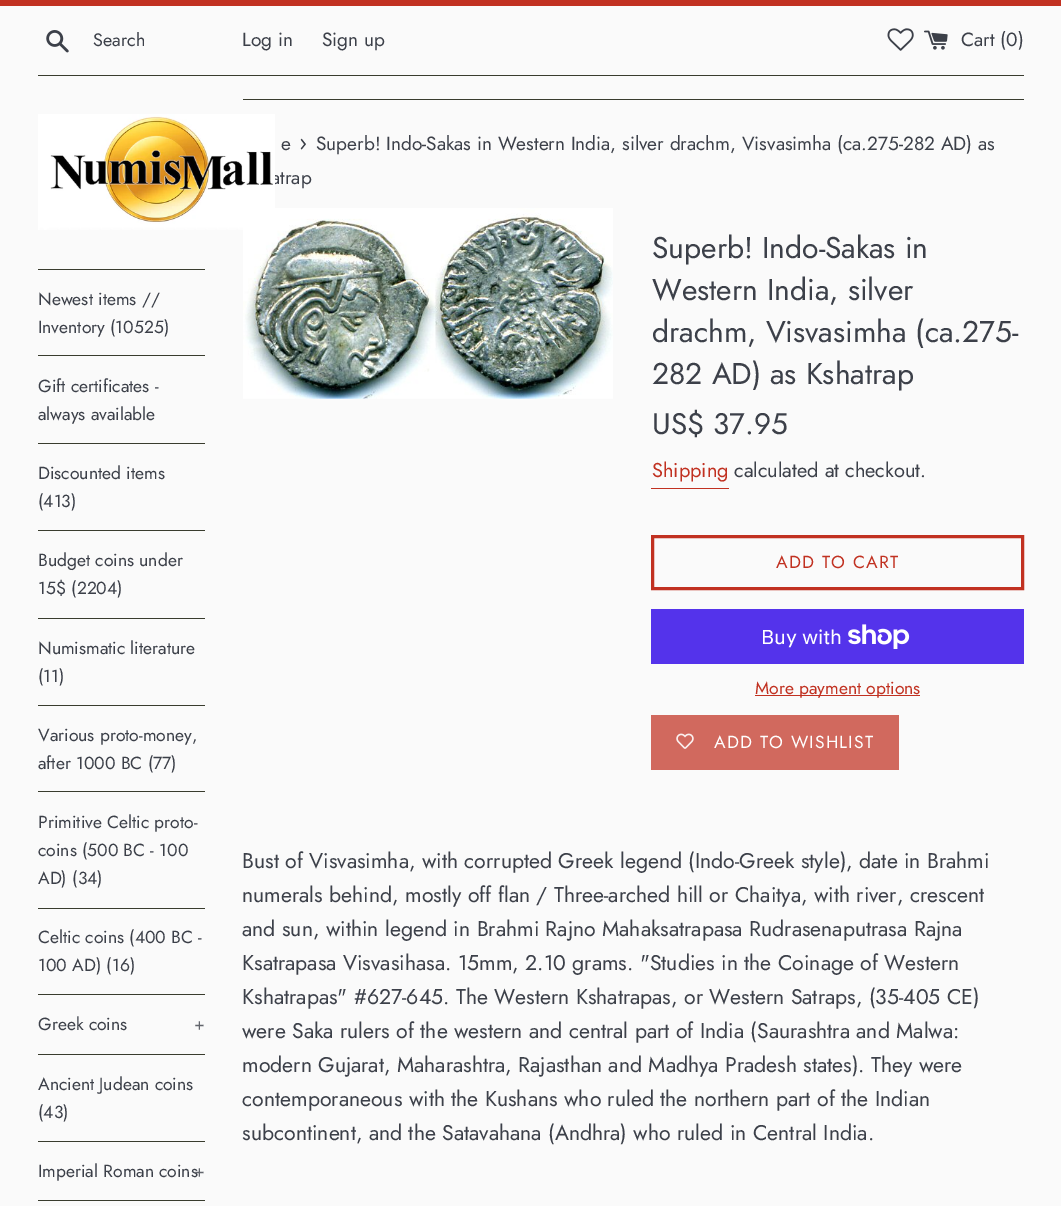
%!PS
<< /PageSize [1061 1206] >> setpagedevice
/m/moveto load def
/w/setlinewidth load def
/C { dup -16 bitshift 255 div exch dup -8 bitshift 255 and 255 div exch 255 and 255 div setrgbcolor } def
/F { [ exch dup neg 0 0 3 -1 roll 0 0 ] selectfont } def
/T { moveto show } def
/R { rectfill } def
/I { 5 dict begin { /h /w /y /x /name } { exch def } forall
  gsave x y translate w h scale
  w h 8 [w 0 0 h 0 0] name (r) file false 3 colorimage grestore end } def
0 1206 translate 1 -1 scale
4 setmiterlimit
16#FAFAFA C
0 0 1061 1206 R
16#C13121 C
0 0 1061 6 R
(1.rgb) 46 30 23 23 I
/Jost-Regular 18 F
16#3C4049 C
(Search) 93 46 T
/Jost-Regular 19.1 F
(Log in) 242 46 T
(Sign up) 322 46 T
(2.rgb) 887 28 27 23 I
(3.rgb) 924 30 24 20 I
(Cart \(0\)) 961 46 T
16#393C2E C
38 75 986 1 R
16#3C4049 C
(atrap) 271 184 T
(4.rgb) 38 114 237 116 I
16#393C2E C
38 269 167 1 R
38 355 167 1 R
/Jost-Regular 17.5 F
16#3C4049 C
(Newest items //) 38 305 T
(Inventory \(10525\)) 38 333 T
16#393C2E C
38 443 167 1 R
16#3C4049 C
(Gift certificates -) 38 392 T
(always available) 38 420 T
16#393C2E C
38 530 167 1 R
16#3C4049 C
(Discounted items) 38 479 T
(\(413\)) 38 507 T
16#393C2E C
38 618 167 1 R
16#3C4049 C
(Budget coins under) 38 566 T
(15$ \(2204\)) 38 594 T
16#393C2E C
38 705 167 1 R
16#3C4049 C
(Numismatic literature) 38 654 T
(\(11\)) 38 682 T
16#393C2E C
38 791 167 1 R
16#3C4049 C
(Various proto-money,) 38 741 T
(after 1000 BC \(77\)) 38 769 T
16#393C2E C
38 908 167 1 R
16#3C4049 C
(Primitive Celtic proto-) 38 828 T
(coins \(500 BC - 100) 38 856 T
(AD\) \(34\)) 38 884 T
16#393C2E C
38 994 167 1 R
16#3C4049 C
(Celtic coins \(400 BC -) 38 943 T
(100 AD\) \(16\)) 38 971 T
16#393C2E C
38 1054 167 1 R
16#3C4049 C
(Greek coins) 38 1030 T
16#62656C C
(+) 194 1030 T
16#393C2E C
38 1141 167 1 R
16#3C4049 C
(Ancient Judean coins) 38 1090 T
(\(43\)) 38 1118 T
16#393C2E C
38 1200 167 1 R
16#3C4049 C
(Imperial Roman coins) 38 1177 T
16#62656C C
(+) 194 1177 T
16#393C2E C
243 99 781 1 R
/Jost-Regular 19.1 F
16#3C4049 C
(e) 281 150 T
/Jost-Regular 23 F
(›) 299 150 T
/Jost-Regular 19.1 F
(Superb! Indo-Sakas in Western India, silver drachm, Visvasimha \(ca.275-282 AD\) as) 316 150 T
(5.rgb) 243 208 370 191 I
/Jost-Regular 30 F
(Superb! Indo-Sakas in) 652 258 T
(Western India, silver) 652 300 T
(drachm, Visvasimha \(ca.275-) 652 342 T
(282 AD\) as Kshatrap) 652 384 T
/Jost-Regular 29.75 F
(US$ 37.95) 652 434 T
/Jost-Regular 20 F
16#C13121 C
(Shipping) 652 477 T
651 488 78 1 R
16#3C4049 C
(calculated at checkout.) 734 477 T
16#C13121 C
3 w
652.5 536.5 370 52 rectstroke
/Jost-Regular 17.5 F
776 568 m 1.25 0 (ADD TO CART) ashow
16#5433EB C
651 609 373 55 R
/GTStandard-Regular 20 F
16#FFFFFF C
(Buy with) 761 644 T
(6.rgb) 848 624 62 25 I
16#C13121 C
755 695 165 1 R
/Jost-Regular 17.5 F
(More payment options) 755 694 T
16#D1695E C
651 715 248 55 R
(7.rgb) 676 733 18 16 I
16#FFFFFF C
714 748 m 1.25 0 (ADD TO WISHLIST) ashow
/Jost-Regular 21.25 F
16#3C4049 C
(Bust of Visvasimha, with corrupted Greek legend \(Indo-Greek style\), date in Brahmi) 242 868 T
(numerals behind, mostly off flan / Three-arched hill or Chaitya, with river, crescent) 242 902 T
(and sun, within legend in Brahmi Rajno Mahaksatrapasa Rudrasenaputrasa Rajna) 242 936 T
(Ksatrapasa Visvasihasa. 15mm, 2.10 grams. "Studies in the Coinage of Western) 242 970 T
(Kshatrapas" #627-645. The Western Kshatrapas, or Western Satraps, \(35-405 CE\)) 242 1004 T
(were Saka rulers of the western and central part of India \(Saurashtra and Malwa:) 242 1038 T
(modern Gujarat, Maharashtra, Rajasthan and Madhya Pradesh states\). They were) 242 1072 T
(contemporaneous with the Kushans who ruled the northern part of the Indian) 242 1106 T
(subcontinent, and the Satavahana \(Andhra\) who ruled in Central India.) 242 1140 T
showpage
